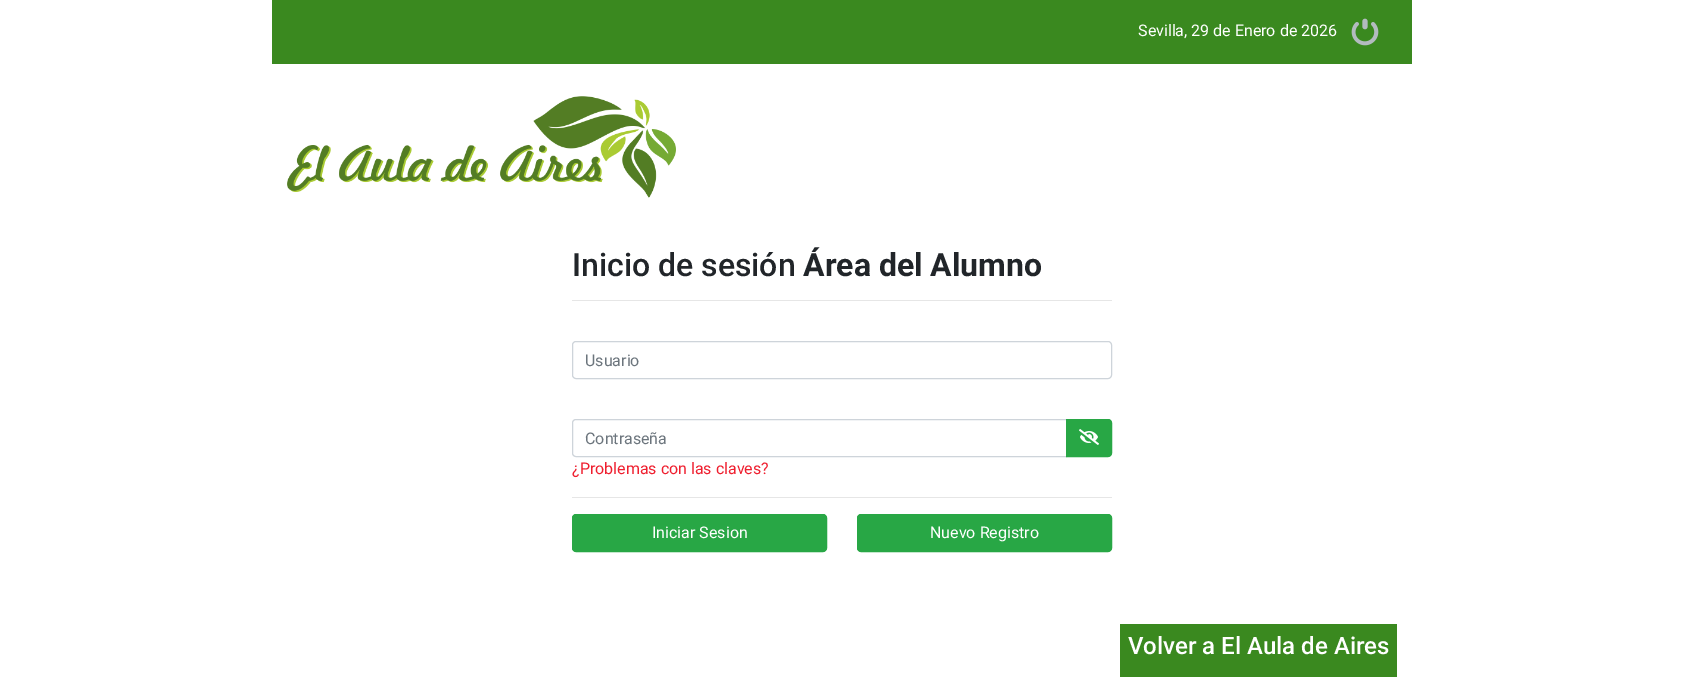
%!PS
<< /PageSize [1684 692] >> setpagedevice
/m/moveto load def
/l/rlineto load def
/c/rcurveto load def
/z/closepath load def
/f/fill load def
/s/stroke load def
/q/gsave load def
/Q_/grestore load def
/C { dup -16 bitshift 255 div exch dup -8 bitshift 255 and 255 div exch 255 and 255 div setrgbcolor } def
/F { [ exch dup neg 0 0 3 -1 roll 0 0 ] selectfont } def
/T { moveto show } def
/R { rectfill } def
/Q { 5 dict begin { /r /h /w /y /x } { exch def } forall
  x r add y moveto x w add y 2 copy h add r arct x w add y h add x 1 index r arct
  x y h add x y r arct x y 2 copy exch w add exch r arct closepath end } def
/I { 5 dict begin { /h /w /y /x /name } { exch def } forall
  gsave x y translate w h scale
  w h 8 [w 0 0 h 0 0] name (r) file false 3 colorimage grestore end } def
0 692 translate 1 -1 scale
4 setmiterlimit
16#FFFFFF C
0 0 1684 692 R
16#3A891F C
272 0 1140 64 R
/Roboto-Regular 16 F
16#FFFFFF C
(Sevilla, 29 de Enero de 2026) 1138 36 T
(1.rgb) 1351 18 28 28 I
(2.rgb) 287 96 389 102 I
/Roboto-Medium 32 F
16#212529 C
(Inicio de sesión) 572 276 T
/Roboto-Bold 32 F
(Área del Alumno) 803 276 T
16#E6E6E6 C
572 300 540 1 R
16#CED4DA C
572.5 341.5 539 37 3.5 Q s
/Roboto-Regular 16 F
16#6C757D C
(Usuario) 585 366 T
16#CED4DA C
576 419.5 m 490.5 0 l 0 37 l -490.5 0 l -2 0 -3.5 -1.5 -3.5 -3.5 c 0 -30 l 0 -2 1.5 -3.5 3.5 -3.5 c z s
16#6C757D C
(Contraseña) 585 444 T
16#28A745 C
1066.5 419.5 m 41.5 0 l 2 0 3.5 1.5 3.5 3.5 c 0 30 l 0 2 -1.5 3.5 -3.5 3.5 c -41.5 0 l z q f Q_
s
(3.rgb) 1079 429 20 16 I
16#EF1F2F C
(¿Problemas con las claves?) 572 474 T
16#E6E6E6 C
572 497 540 1 R
16#28A745 C
572.5 514.5 254 37 3.5 Q q f Q_
s
16#FFFFFF C
(Iniciar Sesion) 652 538 T
16#28A745 C
857.5 514.5 254 37 3.5 Q q f Q_
s
16#FFFFFF C
(Nuevo Registro) 930 538 T
16#3A891F C
1120 624 277 53 R
/Roboto-Medium 24 F
16#FFFFFF C
(Volver a El Aula de Aires) 1128 654 T
showpage
